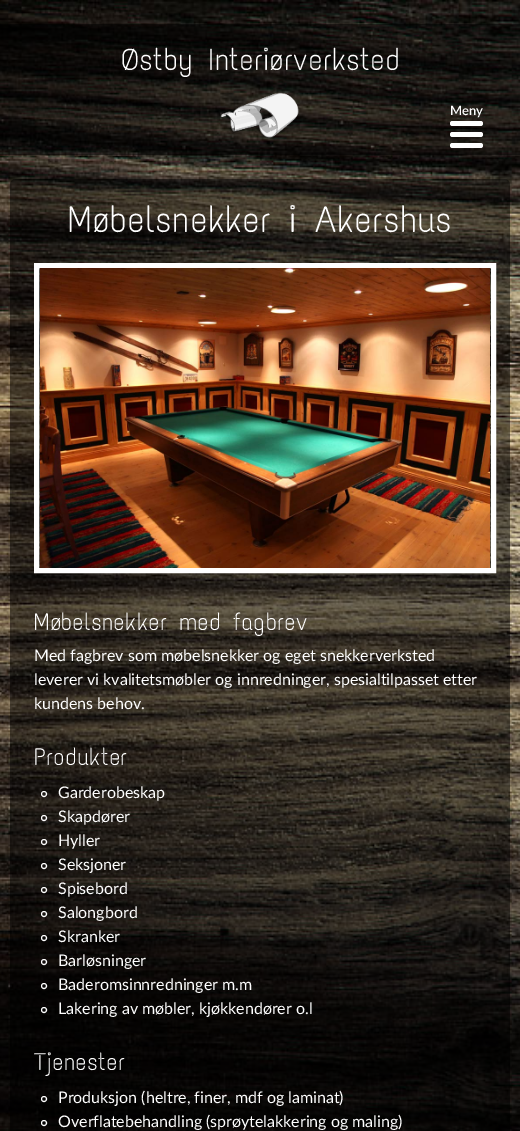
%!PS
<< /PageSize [520 1131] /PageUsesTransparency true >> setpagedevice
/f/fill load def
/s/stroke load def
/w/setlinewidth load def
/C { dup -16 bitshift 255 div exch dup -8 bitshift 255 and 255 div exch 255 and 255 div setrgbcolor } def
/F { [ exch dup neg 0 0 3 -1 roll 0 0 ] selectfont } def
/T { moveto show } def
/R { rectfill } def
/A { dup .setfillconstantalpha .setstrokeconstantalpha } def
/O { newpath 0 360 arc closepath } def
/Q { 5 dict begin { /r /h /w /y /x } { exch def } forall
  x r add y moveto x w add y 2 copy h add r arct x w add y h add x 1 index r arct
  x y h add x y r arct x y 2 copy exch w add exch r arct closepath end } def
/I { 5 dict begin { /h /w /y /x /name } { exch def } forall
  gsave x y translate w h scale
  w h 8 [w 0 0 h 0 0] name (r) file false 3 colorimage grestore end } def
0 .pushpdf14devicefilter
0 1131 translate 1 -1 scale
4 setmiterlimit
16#FFFFFF C
0 0 520 1131 R
(1.rgb) 0 0 520 1131 I
0.5 A
16#000000 C
0 24 520 131 R
/TextMeOne-Regular 30.5 F
1 A
16#FFFFFF C
(Østby Interiørverksted) 121 70 T
(2.rgb) 220 92 80 47 I
(3.rgb) 10 179 500 952 I
/TextMeOne-Regular 36.75 F
(Møbelsnekker i Akershus) 68 232 T
5 w
36.5 265.5 457 305 rectstroke
(4.rgb) 40 268 450 300 I
/TextMeOne-Regular 24 F
(Møbelsnekker med fagbrev) 34 630 T
/Lato-Regular 16 F
(Med fagbrev som møbelsnekker og eget snekkerverksted) 34 661 T
(leverer vi kvalitetsmøbler og innredninger, spesialtilpasset etter) 34 685 T
(kundens behov.) 34 709 T
/TextMeOne-Regular 24 F
(Produkter) 34 765 T
1 w
44 794 2.5 O s
/Lato-Regular 16 F
(Garderobeskap) 58 798 T
44 818 2.5 O s
(Skapdører) 58 822 T
44 842 2.5 O s
(Hyller) 58 846 T
44 866 2.5 O s
(Seksjoner) 58 870 T
44 890 2.5 O s
(Spisebord) 58 894 T
44 914 2.5 O s
(Salongbord) 58 918 T
44 938 2.5 O s
(Skranker) 58 942 T
44 962 2.5 O s
(Barløsninger) 58 966 T
44 986 2.5 O s
(Baderomsinnredninger m.m) 58 990 T
44 1010 2.5 O s
(Lakering av møbler, kjøkkendører o.l) 58 1014 T
/TextMeOne-Regular 24 F
(Tjenester) 34 1070 T
44 1099 2.5 O s
/Lato-Regular 16 F
(Produksjon \(heltre, finer, mdf og laminat\)) 58 1103 T
44 1123 2.5 O s
(Overflatebehandling \(sprøytelakkering og maling\)) 58 1127 T
/Lato-SemiBold 13 F
(Meny) 450 115 T
450 132 33 5 2.5 Q f
450 121 33 5 2.5 Q f
450 143 33 5 2.5 Q f
.poppdf14devicefilter showpage
